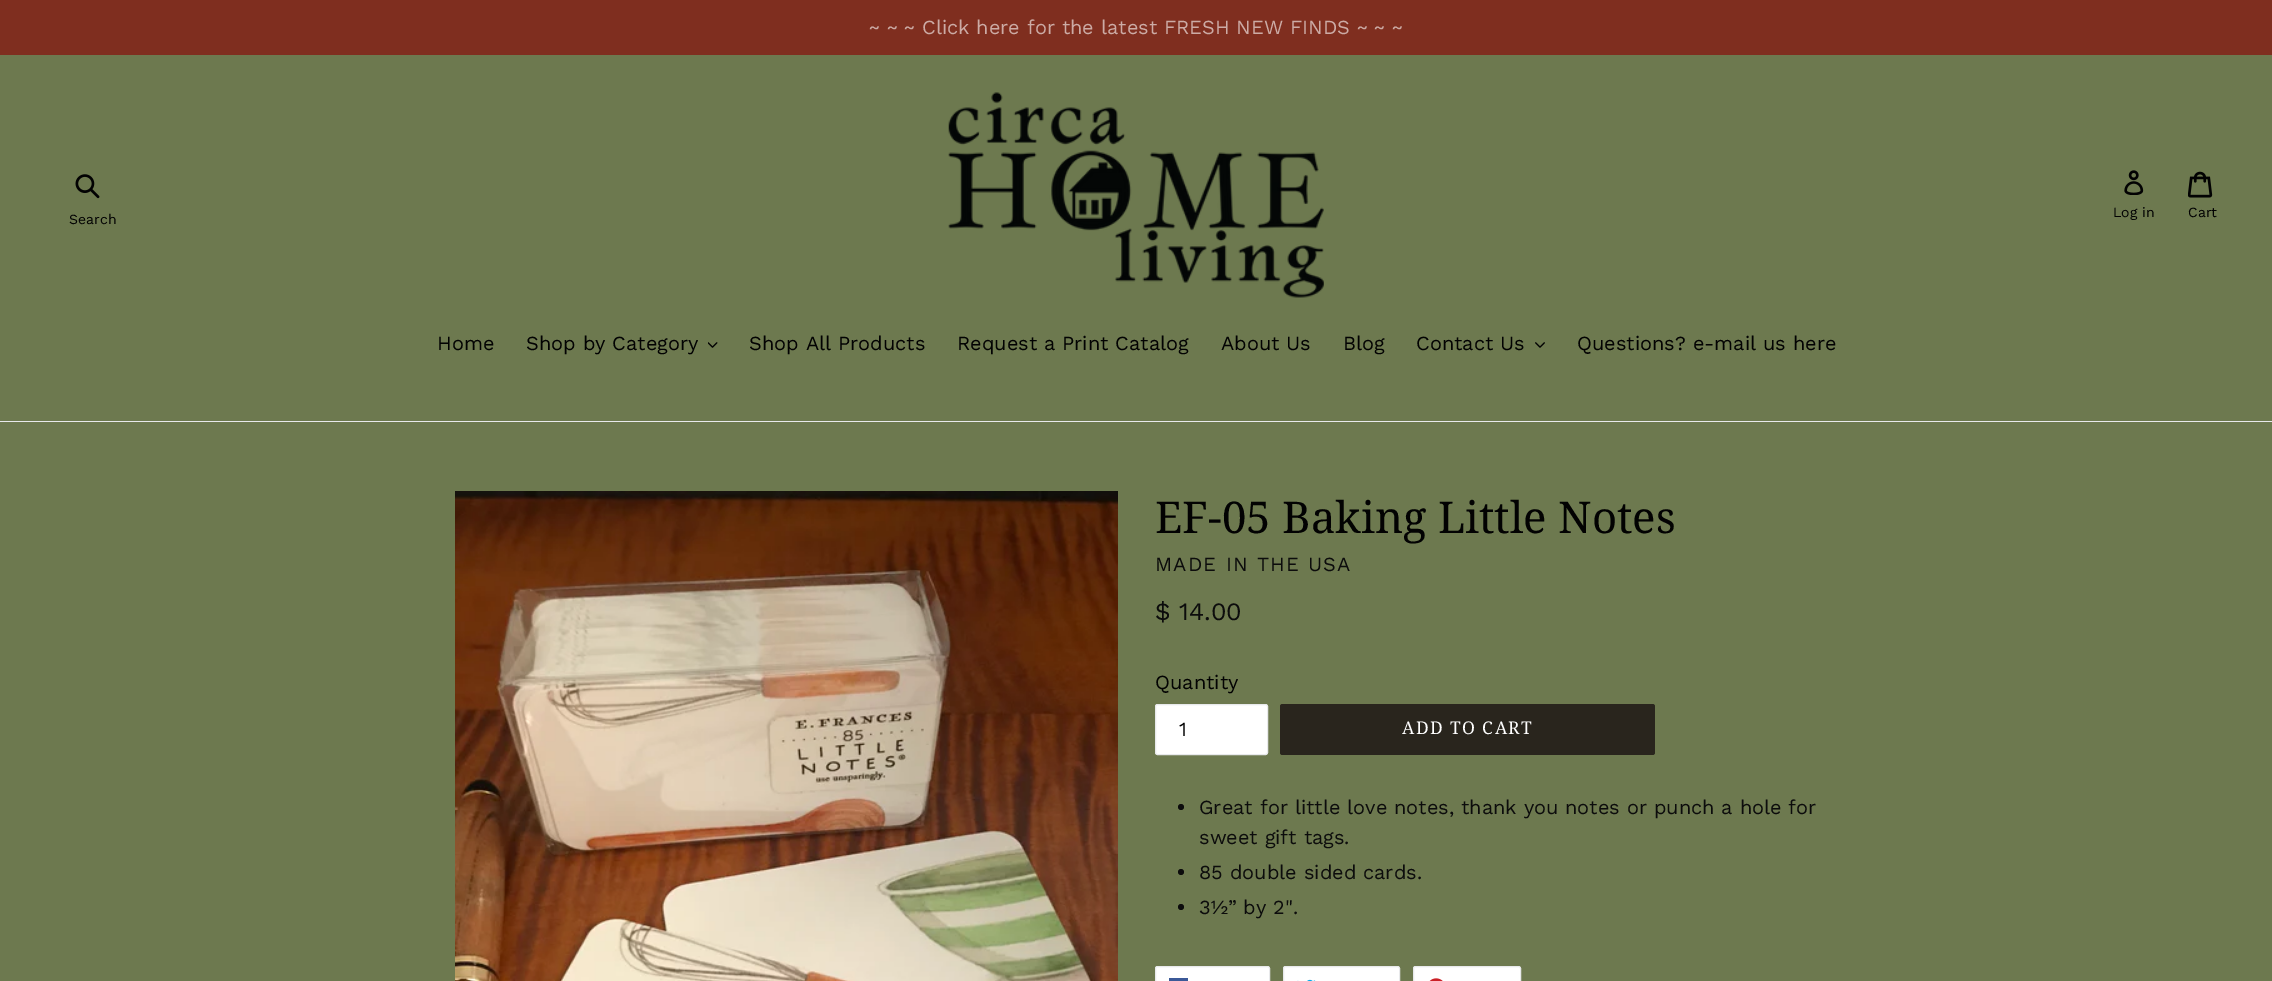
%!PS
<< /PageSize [2272 981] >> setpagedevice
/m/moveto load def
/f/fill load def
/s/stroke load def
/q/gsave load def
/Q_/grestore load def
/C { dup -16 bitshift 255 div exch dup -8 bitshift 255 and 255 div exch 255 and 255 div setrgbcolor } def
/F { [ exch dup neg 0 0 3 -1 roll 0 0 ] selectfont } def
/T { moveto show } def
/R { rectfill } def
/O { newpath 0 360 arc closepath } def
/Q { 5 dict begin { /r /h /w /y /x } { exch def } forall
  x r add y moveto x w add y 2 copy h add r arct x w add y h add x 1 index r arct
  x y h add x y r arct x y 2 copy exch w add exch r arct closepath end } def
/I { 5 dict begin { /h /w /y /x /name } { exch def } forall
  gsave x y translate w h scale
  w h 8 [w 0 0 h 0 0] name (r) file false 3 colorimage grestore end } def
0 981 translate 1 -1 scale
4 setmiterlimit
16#6D794F C
0 0 2272 981 R
16#7F2E1F C
0 0 2272 55 R
/WorkSans-Regular 20 F
16#CCABA5 C
(~ ~ ~ Click here for the latest FRESH NEW FINDS ~ ~ ~) 869 34 T
(1.rgb) 75 174 25 25 I
/WorkSans-Regular 14 F
16#020202 C
(Search) 69 224 T
(2.rgb) 948 92 376 206 I
(3.rgb) 2124 170 20 25 I
(Log in) 2113 217 T
(4.rgb) 2188 171 25 27 I
(Cart) 2188 217 T
16#E8E9EB C
0 421 2272 1 R
/WorkSans-Regular 20 F
16#020202 C
(Home) 437 350 T
(Shop by Category) 526 350 T
(5.rgb) 708 342 10 6 I
(Shop All Products) 749 350 T
(Request a Print Catalog) 957 350 T
(About Us) 1221 350 T
(Blog) 1343 350 T
(Contact Us) 1416 350 T
(6.rgb) 1535 342 10 6 I
(Questions? e-mail us here) 1577 350 T
(7.rgb) 455 491 663 490 I
/DroidSerif-Regular 43.75 F
(EF-05 Baking Little Notes) 1155 533 T
/WorkSans-Regular 20 F
16#0C0C0C C
1155 571 m 1.25 0 (MADE IN THE USA) ashow
/WorkSans-Regular 25 F
($ 14.00) 1155 620 T
/WorkSans-Regular 20 F
16#020202 C
(Quantity) 1155 689 T
16#FFFFFF C
1155.5 704.5 112 50 2 Q q f Q_
16#E8E9EB C
s
16#020202 C
(1) 1179 736 T
16#29251D C
1280 704 375 51 2.5 Q f
/DroidSerif-Regular 17.5 F
16#FFFFFF C
1402 734 m 1.4 0 (ADD TO CART) ashow
16#0C0C0C C
1181 807 3 O f
/WorkSans-Regular 20 F
(Great for little love notes, thank you notes or punch a hole for) 1199 814 T
(sweet gift tags.) 1199 844 T
1181 872 3 O f
(85 double sided cards.) 1199 879 T
1181 907 3 O f
(3½” by 2".) 1199 914 T
16#FFFFFF C
1155.5 966.5 114 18 2 Q q f Q_
16#E8E9EB C
s
16#3B5998 C
1169 978 19 3 R
16#FFFFFF C
1283.5 966.5 116 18 2 Q q f Q_
16#E8E9EB C
s
(8.rgb) 1297 979 19 2 I
16#FFFFFF C
1413.5 966.5 107 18 2 Q q f Q_
16#E8E9EB C
s
(9.rgb) 1429 978 14 3 I
showpage
